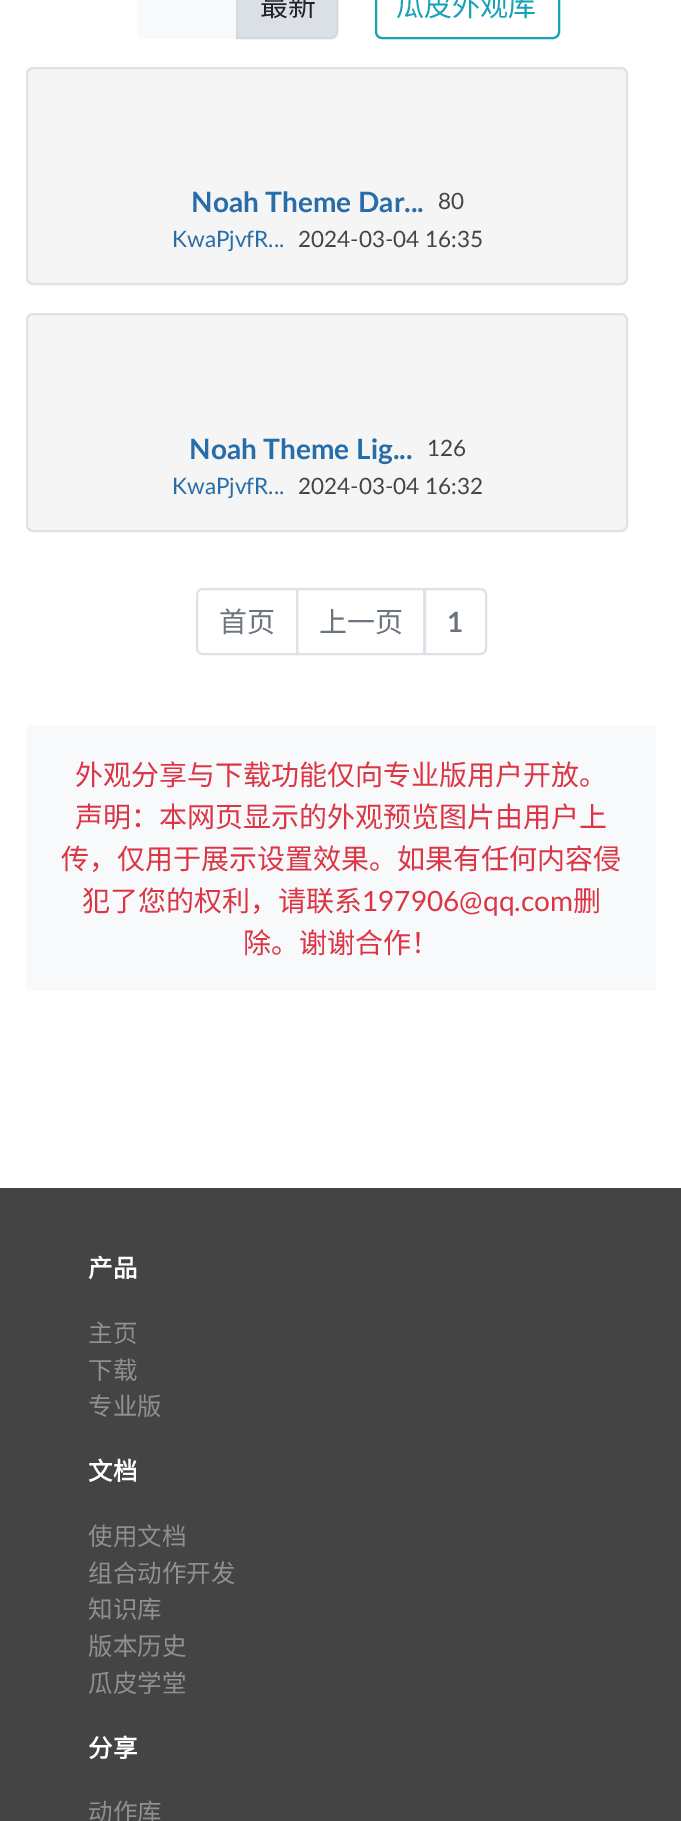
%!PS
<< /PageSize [681 1821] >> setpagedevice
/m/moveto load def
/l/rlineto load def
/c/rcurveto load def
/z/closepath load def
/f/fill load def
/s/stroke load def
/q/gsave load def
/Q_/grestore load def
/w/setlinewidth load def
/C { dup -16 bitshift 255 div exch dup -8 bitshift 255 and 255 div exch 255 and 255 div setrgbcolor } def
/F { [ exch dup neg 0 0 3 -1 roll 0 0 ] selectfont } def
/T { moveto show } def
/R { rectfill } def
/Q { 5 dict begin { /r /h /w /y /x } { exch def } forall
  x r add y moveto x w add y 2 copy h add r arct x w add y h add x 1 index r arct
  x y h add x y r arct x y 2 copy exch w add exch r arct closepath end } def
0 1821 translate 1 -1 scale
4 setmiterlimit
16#444444 C
0 0 681 1821 R
16#FFFFFF C
0 0 681 1188 R
16#F8F9FA C
144 -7 m 94 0 l 0 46 l -94 0 l -4 0 -7 -3 -7 -7 c 0 -32 l 0 -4 3 -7 7 -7 c z f
16#DAE0E5 C
237 -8 m 94 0 l 3.5 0 6 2.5 6 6 c 0 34 l 0 3.5 -2.5 6 -6 6 c -94 0 l z q f Q_
16#D3D9DF C
2 w
s
/NotoSansCJKSC-Regular 28 F
16#212529 C
(最新) 260 16 T
16#17A2B8 C
376 -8 183 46 6 Q s
(瓜皮外观库) 396 16 T
16#F5F5F5 C
27 68 600 216 6 Q q f Q_
16#DEE2E6 C
s
/Lato-Bold 28 F
16#286DA8 C
(Noah Theme Dar...) 191 212 T
/Lato-Regular 22.5 F
16#444444 C
(80) 438 209 T
16#286DA8 C
(KwaPjvfR...) 172 247 T
16#444444 C
(2024-03-04 16:35) 298 247 T
16#F5F5F5 C
27 314 600 217 6 Q q f Q_
16#DEE2E6 C
s
/Lato-Bold 28 F
16#286DA8 C
(Noah Theme Lig...) 189 459 T
/Lato-Regular 22.5 F
16#444444 C
(126) 427 456 T
16#286DA8 C
(KwaPjvfR...) 172 494 T
16#444444 C
(2024-03-04 16:32) 298 494 T
16#DEE2E6 C
203 589 m 94 0 l 0 65 l -94 0 l -3.5 0 -6 -2.5 -6 -6 c 0 -53 l 0 -3.5 2.5 -6 6 -6 c z s
/NotoSansCJKSC-Regular 28 F
16#6C757D C
(首页) 219 632 T
16#DEE2E6 C
297 589 127 65 rectstroke
16#6C757D C
(上一页) 319 632 T
16#FFFFFF C
425 589 m 55 0 l 3.5 0 6 2.5 6 6 c 0 53 l 0 3.5 -2.5 6 -6 6 c -55 0 l z q f Q_
16#DEE2E6 C
s
/Lato-Bold 28 F
16#6C757D C
(1) 447 632 T
16#F8F9FA C
26 725 630 266 R
/NotoSansCJKSC-Regular 28 F
16#DC3545 C
(外观分享与下载功能仅向专业版用户开放。) 75 785 T
(声明：本网页显示的外观预览图片由用户上) 75 827 T
(传，仅用于展示设置效果。如果有任何内容侵) 61 869 T
(犯了您的权利，请联系) 82 911 T
/Lato-Regular 28 F
(197906@qq.com) 362 911 T
/NotoSansCJKSC-Regular 28 F
(删) 573 911 T
(除。谢谢合作！) 243 953 T
/NotoSansCJKSC-Bold 24.5 F
16#FFFFFF C
(产品) 88 1277 T
/NotoSansCJKSC-Regular 24.5 F
16#909090 C
(主页) 88 1342 T
(下载) 88 1379 T
(专业版) 88 1415 T
/NotoSansCJKSC-Bold 24.5 F
16#FFFFFF C
(文档) 88 1480 T
/NotoSansCJKSC-Regular 24.5 F
16#909090 C
(使用文档) 88 1545 T
(组合动作开发) 88 1582 T
(知识库) 88 1618 T
(版本历史) 88 1655 T
(瓜皮学堂) 88 1692 T
/NotoSansCJKSC-Bold 24.5 F
16#FFFFFF C
(分享) 88 1757 T
/NotoSansCJKSC-Regular 24.5 F
16#909090 C
(动作库) 88 1821 T
showpage
